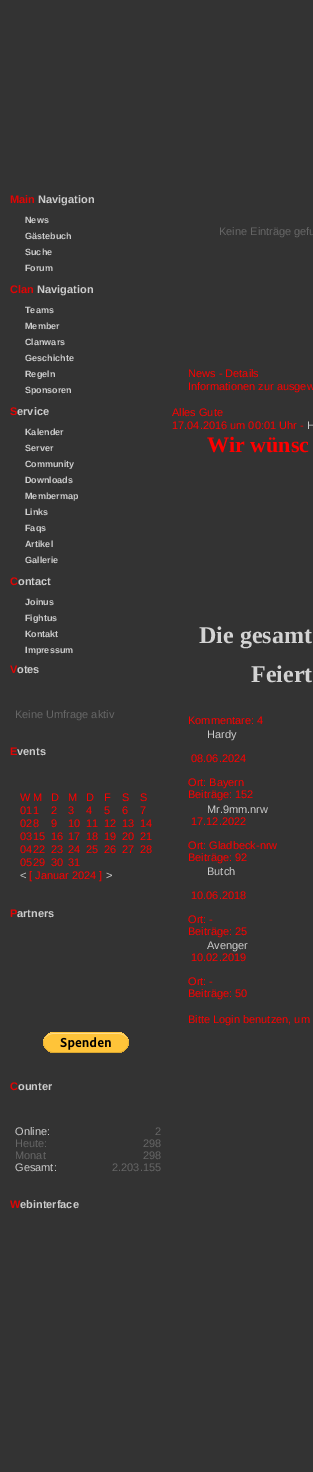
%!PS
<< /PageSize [313 1472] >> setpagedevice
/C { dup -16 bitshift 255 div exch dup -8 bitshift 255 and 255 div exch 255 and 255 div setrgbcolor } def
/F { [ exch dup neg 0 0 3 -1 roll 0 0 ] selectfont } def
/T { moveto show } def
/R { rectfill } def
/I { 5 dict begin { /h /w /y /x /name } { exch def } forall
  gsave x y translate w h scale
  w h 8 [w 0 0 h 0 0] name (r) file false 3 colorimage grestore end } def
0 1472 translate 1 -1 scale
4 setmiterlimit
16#333333 C
0 0 313 1472 R
/LiberationSans-Bold 11 F
16#E00404 C
(Main) 10 203 T
16#CCCCCC C
(Navigation) 38 203 T
/LiberationSans-Bold 9 F
(News) 25 223 T
(Gästebuch) 25 239 T
(Suche) 25 255 T
(Forum) 25 271 T
/LiberationSans-Bold 11 F
16#E00404 C
(Clan) 10 293 T
16#CCCCCC C
(Navigation) 37 293 T
/LiberationSans-Bold 9 F
(Teams) 25 313 T
(Member) 25 329 T
(Clanwars) 25 345 T
(Geschichte) 25 361 T
(Regeln) 25 377 T
(Sponsoren) 25 393 T
/LiberationSans-Bold 11 F
16#E00404 C
(S) 10 415 T
16#CCCCCC C
(ervice) 17 415 T
/LiberationSans-Bold 9 F
(Kalender) 25 435 T
(Server) 25 451 T
(Community) 25 467 T
(Downloads) 25 483 T
(Membermap) 25 499 T
(Links) 25 515 T
(Faqs) 25 531 T
(Artikel) 25 547 T
(Gallerie) 25 563 T
/LiberationSans-Bold 11 F
16#E00404 C
(C) 10 585 T
16#CCCCCC C
(ontact) 18 585 T
/LiberationSans-Bold 9 F
(Joinus) 25 605 T
(Fightus) 25 621 T
(Kontakt) 25 637 T
(Impressum) 25 653 T
/LiberationSans-Bold 11 F
16#E00404 C
(V) 10 673 T
16#CCCCCC C
(otes) 17 673 T
/LiberationSans-Regular 11 F
16#666666 C
(Keine Umfrage aktiv) 15 718 T
/LiberationSans-Bold 11 F
16#E00404 C
(E) 10 755 T
16#CCCCCC C
(vents) 17 755 T
/LiberationSans-Regular 11 F
16#FF0000 C
(W M) 20 801 T
(D) 51 801 T
(M) 68 801 T
(D) 86 801 T
(F) 104 801 T
(S) 122 801 T
(S) 140 801 T
(01) 20 814 T
(1) 33 814 T
(2) 51 814 T
(3) 68 814 T
(4) 86 814 T
(5) 104 814 T
(6) 122 814 T
(7) 140 814 T
(02) 20 827 T
(8) 33 827 T
(9) 51 827 T
(10) 68 827 T
(11) 86 827 T
(12) 104 827 T
(13) 122 827 T
(14) 140 827 T
(03) 20 840 T
(15) 33 840 T
(16) 51 840 T
(17) 68 840 T
(18) 86 840 T
(19) 104 840 T
(20) 122 840 T
(21) 140 840 T
(04) 20 853 T
(22) 33 853 T
(23) 51 853 T
(24) 68 853 T
(25) 86 853 T
(26) 104 853 T
(27) 122 853 T
(28) 140 853 T
(05) 20 866 T
(29) 33 866 T
(30) 51 866 T
(31) 68 866 T
16#CCCCCC C
(<) 20 879 T
16#FF0000 C
([ Januar 2024 ]) 29 879 T
16#CCCCCC C
(>) 106 879 T
/LiberationSans-Bold 11 F
16#E00404 C
(P) 10 917 T
16#CCCCCC C
(artners) 17 917 T
(1.rgb) 43 1032 86 21 I
16#E00404 C
(C) 10 1090 T
16#CCCCCC C
(ounter) 18 1090 T
/LiberationSans-Regular 11 F
(Online:) 15 1135 T
16#666666 C
(2) 155 1135 T
(Heute:) 15 1147 T
(298) 143 1147 T
(Monat) 15 1159 T
(298) 143 1159 T
16#CCCCCC C
(Gesamt:) 15 1171 T
16#666666 C
(2.203.155) 112 1171 T
/LiberationSans-Bold 11 F
16#E00404 C
(W) 10 1208 T
16#CCCCCC C
(ebinterface) 20 1208 T
/LiberationSans-Regular 11 F
16#666666 C
(Keine Einträge gefu) 219 235 T
16#FF0000 C
(News - Details) 188 377 T
(Informationen zur ausgew) 188 390 T
(Alles Gute) 172 416 T
(17.04.2016 um 00:01 Uhr -) 172 429 T
16#CCCCCC C
(H) 307 429 T
/LiberationSerif-Bold 22 F
16#FF0000 C
(Wir wünsc) 207 452 T
/LiberationSerif-Bold 24 F
16#D3D3D3 C
(Die gesamt) 199 643 T
(Feiert) 251 682 T
/LiberationSans-Regular 11 F
16#FF0000 C
(Kommentare: 4) 188 724 T
16#CCCCCC C
(Hardy) 207 738 T
16#FF0000 C
(08.06.2024) 191 762 T
(Ort: Bayern) 188 786 T
(Beiträge: 152) 188 798 T
16#CCCCCC C
(Mr.9mm.nrw) 207 813 T
16#FF0000 C
(17.12.2022) 191 825 T
(Ort: Gladbeck-nrw) 188 849 T
(Beiträge: 92) 188 861 T
16#CCCCCC C
(Butch) 207 875 T
16#FF0000 C
(10.06.2018) 191 899 T
(Ort: -) 188 923 T
(Beiträge: 25) 188 935 T
16#CCCCCC C
(Avenger) 207 949 T
16#FF0000 C
(10.02.2019) 191 961 T
(Ort: -) 188 985 T
(Beiträge: 50) 188 997 T
(Bitte Login benutzen, um) 188 1023 T
showpage
